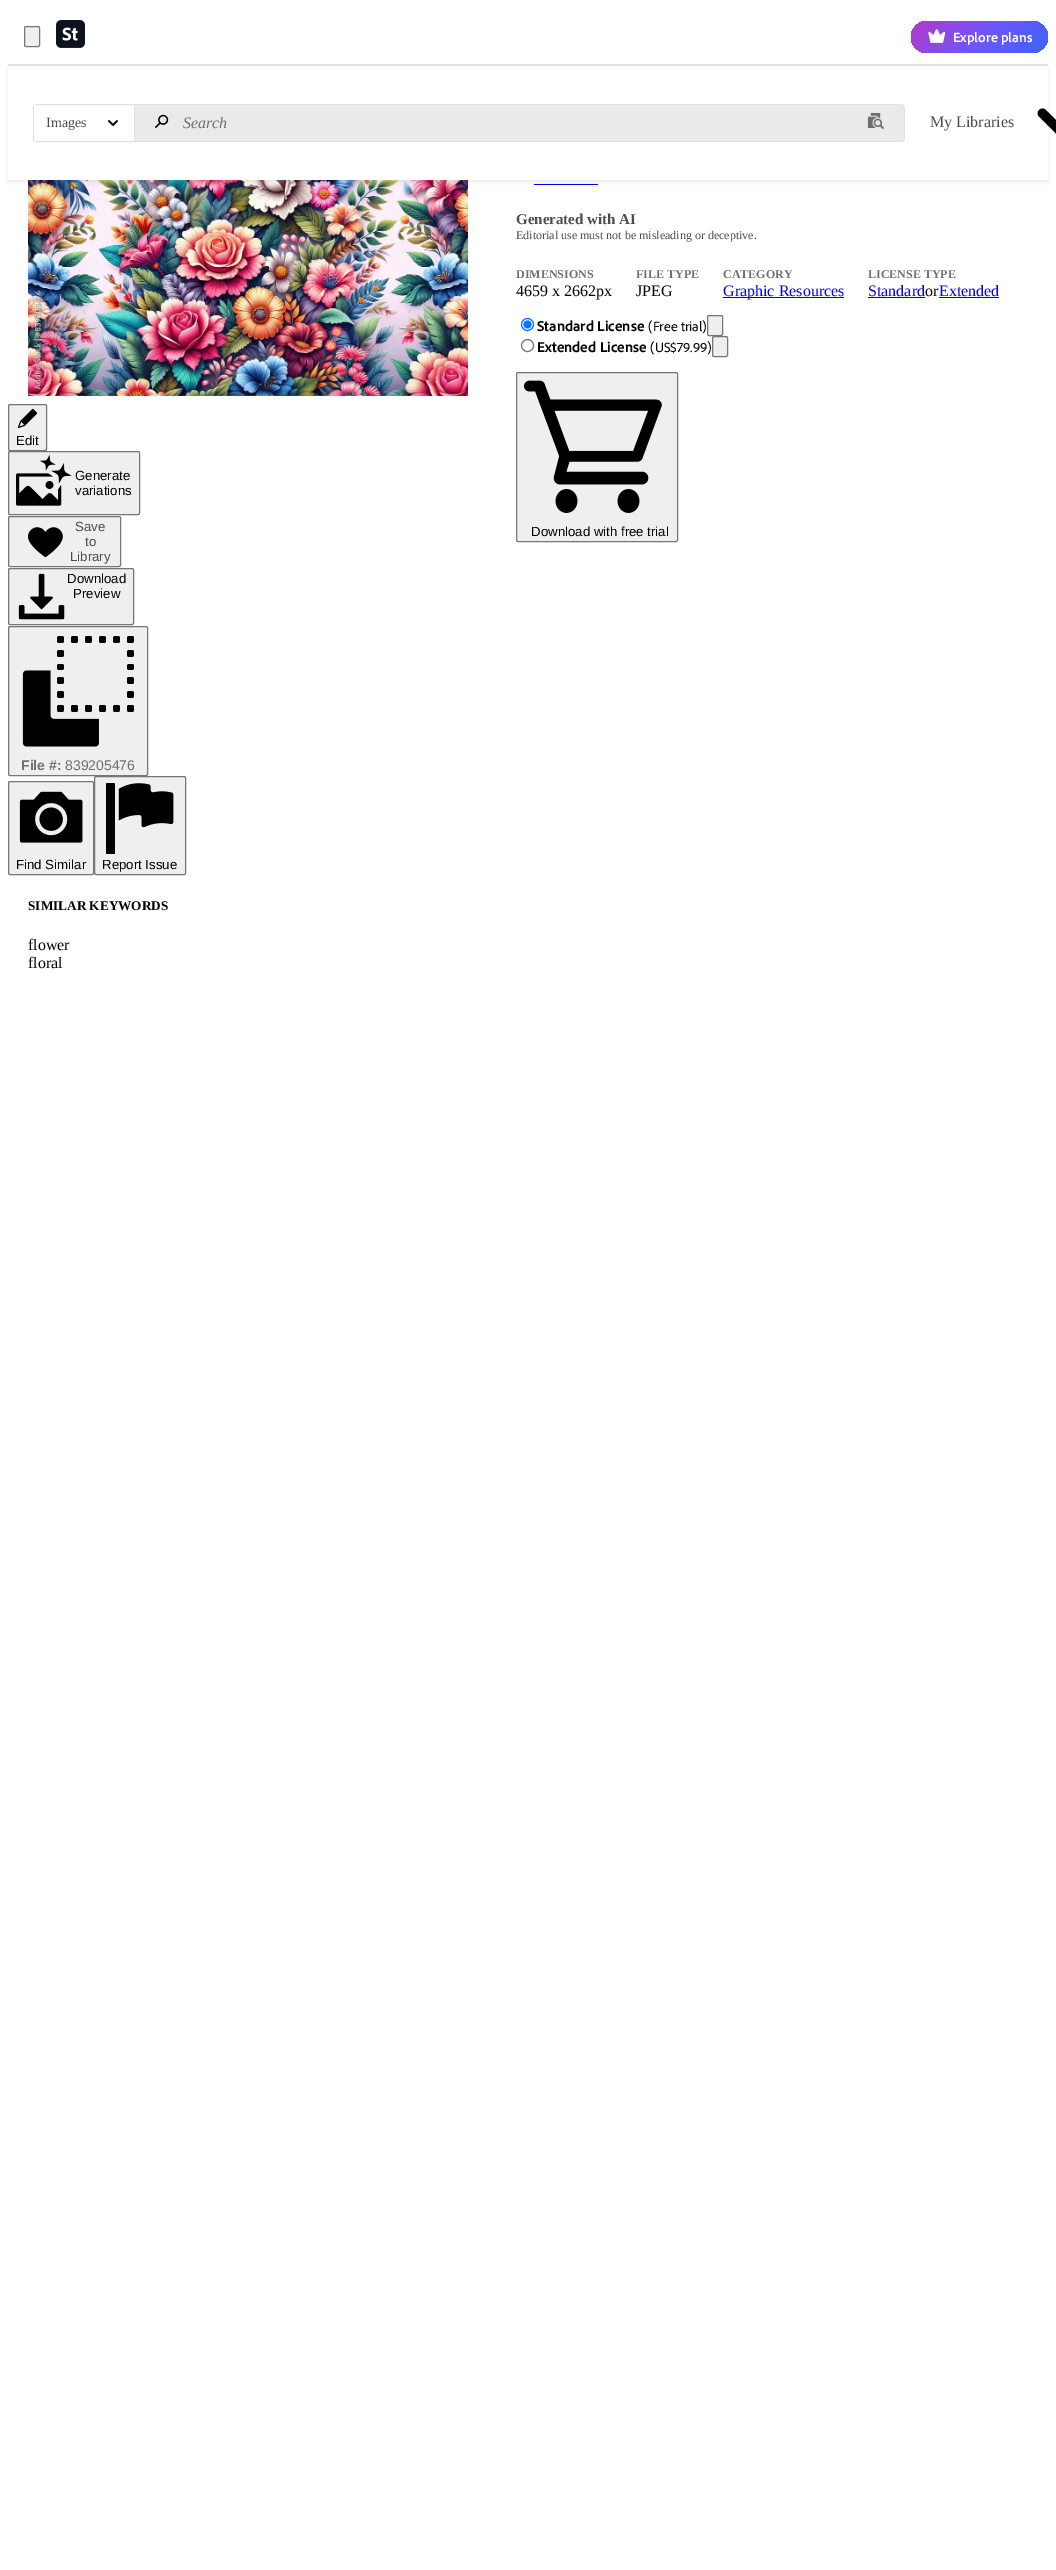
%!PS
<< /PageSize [1056 2570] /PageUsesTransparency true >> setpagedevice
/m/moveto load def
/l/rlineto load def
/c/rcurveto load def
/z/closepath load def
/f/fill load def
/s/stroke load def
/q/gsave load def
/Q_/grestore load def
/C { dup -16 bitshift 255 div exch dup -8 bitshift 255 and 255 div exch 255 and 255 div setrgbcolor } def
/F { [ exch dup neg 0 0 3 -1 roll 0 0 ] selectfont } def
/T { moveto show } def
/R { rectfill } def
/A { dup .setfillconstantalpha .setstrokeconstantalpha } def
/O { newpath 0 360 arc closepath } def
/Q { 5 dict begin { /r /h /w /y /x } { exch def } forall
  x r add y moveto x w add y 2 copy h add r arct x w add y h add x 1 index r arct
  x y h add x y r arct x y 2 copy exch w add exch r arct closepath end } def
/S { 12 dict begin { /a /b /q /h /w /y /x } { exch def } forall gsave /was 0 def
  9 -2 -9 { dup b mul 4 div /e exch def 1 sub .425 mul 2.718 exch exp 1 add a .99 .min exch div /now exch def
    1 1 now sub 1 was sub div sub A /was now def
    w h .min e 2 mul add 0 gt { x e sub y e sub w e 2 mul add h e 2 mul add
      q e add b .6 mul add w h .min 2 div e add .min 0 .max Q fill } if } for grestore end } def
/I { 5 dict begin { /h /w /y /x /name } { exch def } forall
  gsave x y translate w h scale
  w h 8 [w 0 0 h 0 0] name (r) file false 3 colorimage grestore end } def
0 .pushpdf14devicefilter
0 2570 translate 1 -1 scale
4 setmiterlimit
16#FFFFFF C
0 0 1056 2570 R
16#0000EE C
534 184 64 1 R
(8.rgb) 28 180 440 216 I
16#343434 C
8 68 1040 114 0 2 .1 S
16#E1E1E1 C
8 64 1040 2 R
16#EFEFEF C
24.5 26.5 15 20 1.5 Q q f Q_
16#767676 C
s
(1.rgb) 56 20 29 28 I
q 911 21 137 32 16 Q clip newpath
<< /ShadingType 2 /ColorSpace /DeviceRGB /Coords [937 -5.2 1022 79] /Extend [true true] /Function << /FunctionType 3 /Domain [0 1] /Functions [<< /FunctionType 2 /Domain [0 1] /C0 [.71 .224 .784] /C1 [.443 .333 .98] /N 1 >> << /FunctionType 2 /Domain [0 1] /C0 [.443 .333 .98] /C1 [.231 .388 .984] /N 1 >>] /Bounds [.5] /Encode [0 1 0 1] >> >> shfill Q_
(2.rgb) 928 29 18 14 I
/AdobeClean-Bold 14 F
16#FFFFFF C
(Explore plans) 953 42 T
8 66 1040 114 R
16#E1E1E1 C
37 104.5 m 97.5 0 l 0 37 l -97.5 0 l -2 0 -3.5 -1.5 -3.5 -3.5 c 0 -30 l 0 -2 1.5 -3.5 3.5 -3.5 c z s
16#FFFFFF C
34 105 3 36 R
/LiberationSerif-Regular 14 F
16#4B4B4B C
(Images) 46 127 T
(3.rgb) 108 120 10 6 I
16#EAEAEA C
135 105 m 766 0 l 1.5 0 3 1.5 3 3 c 0 30 l 0 1.5 -1.5 3 -3 3 c -766 0 l z f
16#E1E1E1 C
135 104 m 766 0 l 2 0 4 2 4 4 c 0 30 l 0 2 -2 4 -4 4 c -766 0 l z 135 105 m 766 0 l 2 0 3 1 3 3 c 0 30 l 0 2 -1 3 -3 3 c -766 0 l z eofill
(4.rgb) 155 114 14 14 I
/LiberationSerif-Italic 16 F
16#707070 C
(Search) 183 128 T
(5.rgb) 867 112 17 17 I
/LiberationSerif-Regular 16 F
16#4B4B4B C
(My Libraries) 930 127 T
(6.rgb) 1037 108 19 26 I
/LiberationSerif-Bold 15 F
(Generated with AI) 516 224 T
/LiberationSerif-Regular 12 F
(Editorial use must not be misleading or deceptive.) 516 239 T
/LiberationSerif-Bold 12 F
16#707070 C
(DIMENSIONS) 516 278 T
/LiberationSerif-Regular 16 F
16#000000 C
(4659 x 2662px) 516 296 T
/LiberationSerif-Bold 12 F
16#707070 C
(FILE TYPE) 636 278 T
/LiberationSerif-Regular 16 F
16#000000 C
(JPEG) 636 296 T
/LiberationSerif-Bold 12 F
16#707070 C
(CATEGORY) 723 278 T
16#0000EE C
723 297 121 1 R
/LiberationSerif-Regular 16 F
(Graphic Resources) 723 296 T
/LiberationSerif-Bold 12 F
16#707070 C
(LICENSE TYPE) 868 278 T
/LiberationSerif-Regular 16 F
16#0000EE C
(Standard) 868 296 T
16#000000 C
(or) 925 296 T
16#0000EE C
868 297 57 1 R
939 297 60 1 R
(Extended) 939 296 T
16#0075FF C
527.5 324.5 6 O s
527.5 324.5 4 O f
/AdobeClean-Bold 15 F
16#000000 C
(Standard License) 537 331 T
/AdobeClean-Regular 14 F
(\(Free trial\)) 648 331 T
16#EFEFEF C
707.5 315.5 15 20 1.5 Q q f Q_
16#767676 C
s
527.5 345.5 6 O s
/AdobeClean-Bold 15 F
16#000000 C
(Extended License) 537 352 T
/AdobeClean-Regular 14 F
(\(US$79.99\)) 650 352 T
16#EFEFEF C
712.5 336.5 15 20 1.5 Q q f Q_
16#767676 C
s
16#EFEFEF C
516.5 372.5 161 169 1.5 Q q f Q_
16#767676 C
s
(7.rgb) 524 380 138 133 I
/LiberationSans-Regular 13.25 F
16#000000 C
(Download with free trial) 531 536 T
16#EFEFEF C
8.5 404.5 38 46 1.5 Q q f Q_
16#767676 C
s
(9.rgb) 17 408 21 20 I
16#000000 C
(Edit) 16 445 T
16#EFEFEF C
8.5 451.5 131 63 1.5 Q q f Q_
16#767676 C
s
(10.rgb) 16 454 56 52 I
16#000000 C
(Generate) 75 480 T
(variations) 75 495 T
16#EFEFEF C
8.5 516.5 112 50 1.5 Q q f Q_
16#767676 C
s
(11.rgb) 28 527 35 31 I
16#4B4B4B C
(Save) 75 531 T
(to) 85 546 T
(Library) 70 561 T
16#EFEFEF C
8.5 568.5 125 56 1.5 Q q f Q_
16#767676 C
s
(12.rgb) 18 573 47 47 I
16#000000 C
(Download) 67 583 T
(Preview) 73 598 T
16#EFEFEF C
8.5 626.5 139 149 1.5 Q q f Q_
16#767676 C
s
(13.rgb) 22 636 112 111 I
/LiberationSans-Bold 14 F
16#707070 C
(File #:) 21 770 T
/LiberationSans-Regular 14 F
(839205476) 65 770 T
16#EFEFEF C
8.5 781.5 85 93 1.5 Q q f Q_
16#767676 C
s
(14.rgb) 19 791 64 52 I
/LiberationSans-Regular 13.25 F
16#000000 C
(Find Similar) 16 869 T
16#EFEFEF C
94.5 776.5 91 98 1.5 Q q f Q_
16#767676 C
s
(15.rgb) 106 783 68 71 I
16#000000 C
(Report Issue) 102 869 T
/LiberationSerif-Bold 13.25 F
(SIMILAR KEYWORDS) 28 910 T
/LiberationSerif-Regular 16 F
(flower) 28 950 T
(floral) 28 968 T
.poppdf14devicefilter showpage
